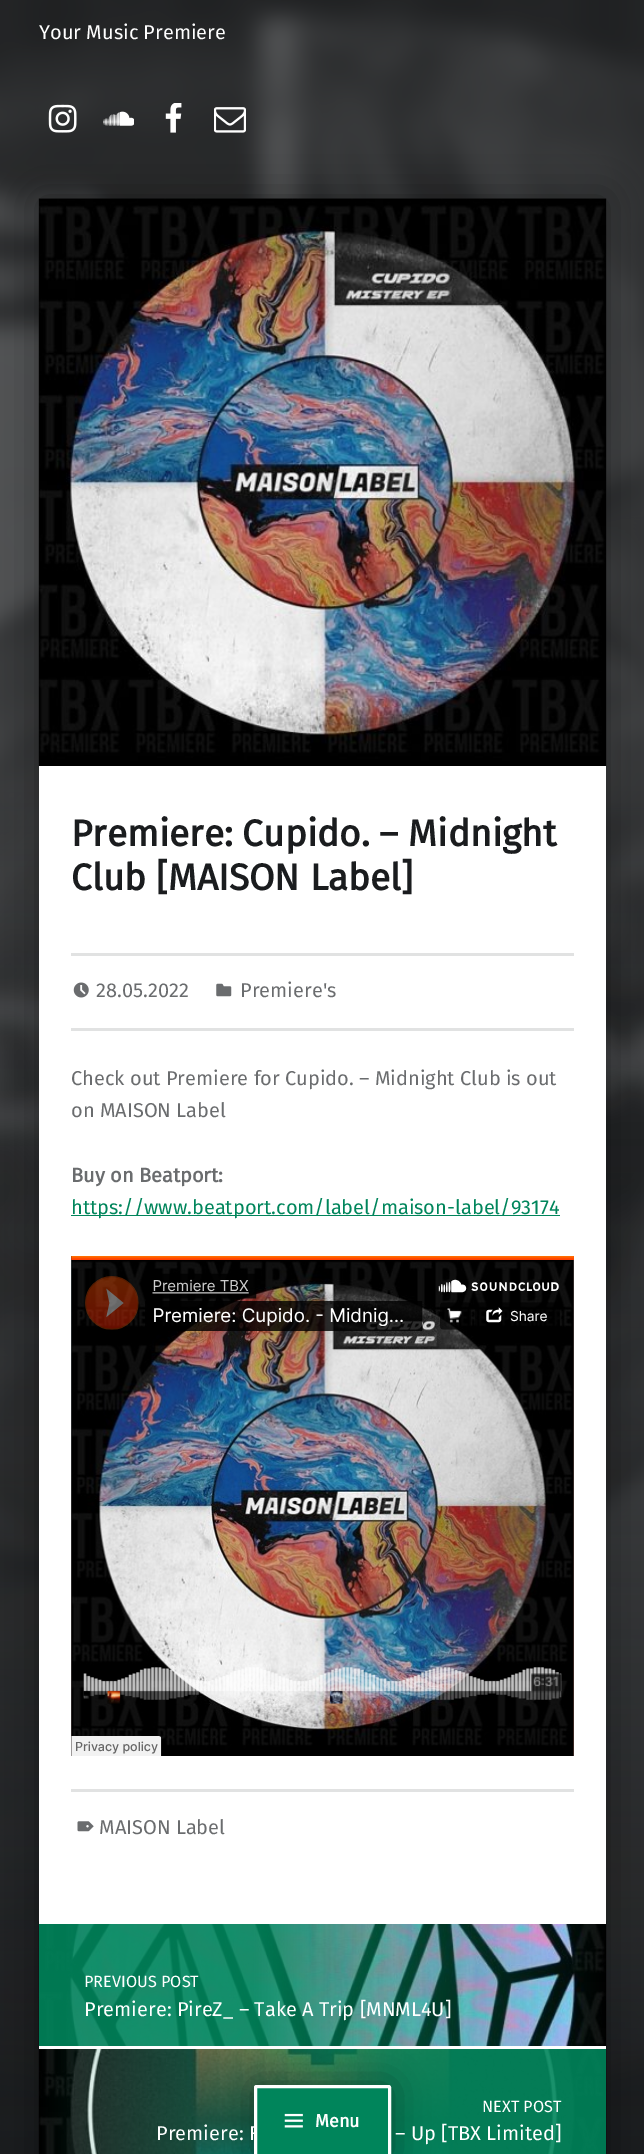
%!PS
<< /PageSize [644 2154] /PageUsesTransparency true >> setpagedevice
/f/fill load def
/s/stroke load def
/q/gsave load def
/Q_/grestore load def
/w/setlinewidth load def
/C { dup -16 bitshift 255 div exch dup -8 bitshift 255 and 255 div exch 255 and 255 div setrgbcolor } def
/F { [ exch dup neg 0 0 3 -1 roll 0 0 ] selectfont } def
/T { moveto show } def
/R { rectfill } def
/A { dup .setfillconstantalpha .setstrokeconstantalpha } def
/Q { 5 dict begin { /r /h /w /y /x } { exch def } forall
  x r add y moveto x w add y 2 copy h add r arct x w add y h add x 1 index r arct
  x y h add x y r arct x y 2 copy exch w add exch r arct closepath end } def
/S { 12 dict begin { /a /b /q /h /w /y /x } { exch def } forall gsave /was 0 def
  9 -2 -9 { dup b mul 4 div /e exch def 1 sub .425 mul 2.718 exch exp 1 add a .99 .min exch div /now exch def
    1 1 now sub 1 was sub div sub A /was now def
    w h .min e 2 mul add 0 gt { x e sub y e sub w e 2 mul add h e 2 mul add
      q e add b .6 mul add w h .min 2 div e add .min 0 .max Q fill } if } for grestore end } def
/I { 5 dict begin { /h /w /y /x /name } { exch def } forall
  gsave x y translate w h scale
  w h 8 [w 0 0 h 0 0] name (r) file false 3 colorimage grestore end } def
0 .pushpdf14devicefilter
0 2154 translate 1 -1 scale
4 setmiterlimit
16#FFFFFF C
0 0 644 2154 R
(1.rgb) 0 0 644 2154 I
/FiraSans-Regular 20 F
(Your Music Premiere) 39 39 T
(2.rgb) 48 104 29 29 I
(3.rgb) 103 111 31 15 I
(4.rgb) 165 103 17 30 I
(5.rgb) 214 107 32 26 I
16#000000 C
39 199 567 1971 0 20 .4 S
(12.rgb) 38 1921 569 125 I
(13.rgb) 38 2046 569 108 I
16#FFFFFF C
39 2046 567 3 R
16#000000 C
254 2085 137 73 2.5 18 .4 S
16#FFFFFF C
(Premiere: F) 156 2140 T
16#00855B C
255.5 2086.5 134 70 1 Q q f Q_
16#FFFFFF C
3 w
s
(6.rgb) 284 2113 19 15 I
/FiraSans-Bold 18 F
(Menu) 315 2127 T
39 766 567 1155 R
(7.rgb) 38 198 569 568 I
/FiraSans-Bold 37 F
16#1A1C1E C
(Premiere: Cupido. – Midnight) 71 846 T
(Club [MAISON Label]) 71 890 T
16#E1E2E2 C
71 953 503 3 R
71 1028 503 3 R
(8.rgb) 73 982 16 16 I
/FiraSans-Regular 20 F
16#6A6C6E C
(28.05.2022) 96 997 T
(9.rgb) 216 983 16 14 I
(Premiere's) 240 997 T
(Check out Premiere for Cupido. – Midnight Club is out) 71 1085 T
(on MAISON Label) 71 1117 T
/FiraSans-Bold 20 F
(Buy on Beatport:) 71 1182 T
16#00855B C
71 1215 489 1 R
/FiraSans-Regular 20 F
(https://www.beatport.com/label/maison-label/93174) 71 1214 T
(10.rgb) 71 1256 503 500 I
16#E1E2E2 C
71 1789 503 3 R
(11.rgb) 77 1821 17 11 I
16#6A6C6E C
(MAISON Label) 99 1834 T
16#FFFFFF C
39 1921 567 3 R
/FiraSans-Regular 16.25 F
(PREVIOUS POST) 84 1987 T
/FiraSans-Regular 20 F
(Premiere: PireZ_ – Take A Trip [MNML4U]) 84 2016 T
/FiraSans-Regular 16.25 F
(NEXT POST) 482 2112 T
/FiraSans-Regular 20 F
(– Up [TBX Limited]) 395 2140 T
.poppdf14devicefilter showpage
